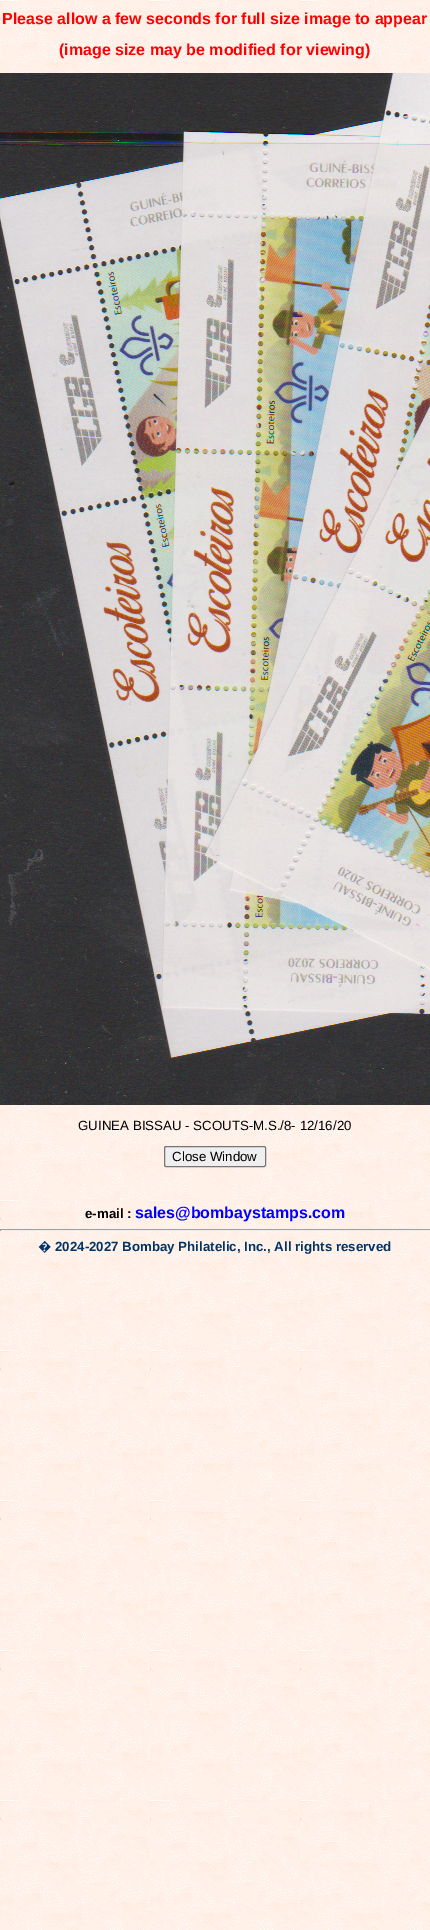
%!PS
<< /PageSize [430 1930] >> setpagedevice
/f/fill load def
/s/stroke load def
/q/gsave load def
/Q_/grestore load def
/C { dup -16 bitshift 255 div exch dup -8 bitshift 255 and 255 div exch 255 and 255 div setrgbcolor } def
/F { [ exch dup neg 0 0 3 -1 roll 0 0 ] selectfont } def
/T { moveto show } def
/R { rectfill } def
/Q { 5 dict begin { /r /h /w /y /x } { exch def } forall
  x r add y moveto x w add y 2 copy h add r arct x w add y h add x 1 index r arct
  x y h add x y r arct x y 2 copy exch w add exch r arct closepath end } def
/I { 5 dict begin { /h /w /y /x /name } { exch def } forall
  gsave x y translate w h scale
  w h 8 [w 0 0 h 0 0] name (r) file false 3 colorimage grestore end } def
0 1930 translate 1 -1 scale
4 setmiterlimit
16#FFFFFF C
0 0 430 1930 R
(1.rgb) 0 0 430 1930 I
/LiberationSans-Bold 16 F
16#FF0000 C
(Please allow a few seconds for full size image to appear) 2 24 T
(\(image size may be modified for viewing\)) 59 55 T
(2.rgb) 0 73 430 1032 I
/LiberationSans-Regular 13.3 F
16#000000 C
(GUINEA BISSAU - SCOUTS-M.S./8- 12/16/20) 78 1130 T
16#EFEFEF C
164.5 1146.5 101 20 1.5 Q q f Q_
16#767676 C
s
16#000000 C
(Close Window) 172 1161 T
/LiberationSans-Bold 13.3 F
(e-mail :) 85 1218 T
/LiberationSans-Bold 16 F
16#0000FF C
(sales@bombaystamps.com) 135 1218 T
16#9F9F9F C
0 1229 430 1 R
16#EEEEEE C
0 1230 430 1 R
16#9F9F9F C
0 1229 1 2 R
/NotoSans-Bold 13.3 F
16#003366 C
(�) 38 1251 T
/LiberationSans-Bold 13.3 F
(2024-2027 Bombay Philatelic, Inc., All rights reserved) 55 1251 T
showpage
